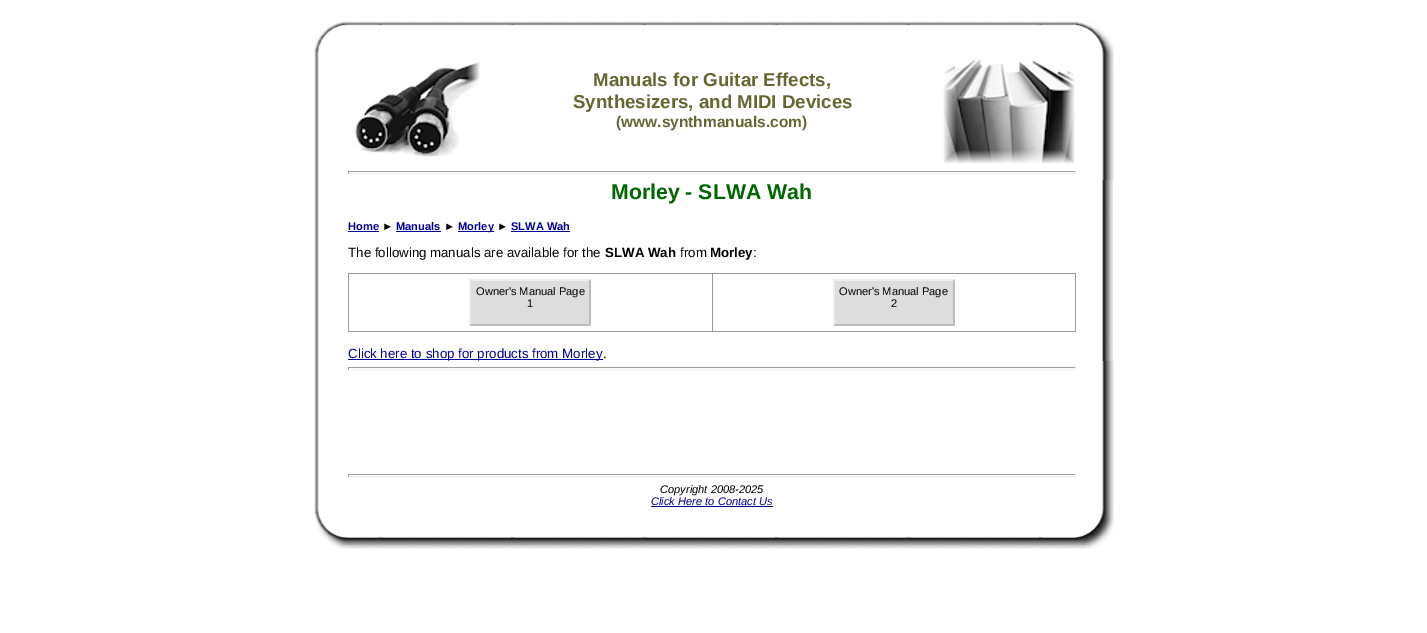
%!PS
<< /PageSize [1427 633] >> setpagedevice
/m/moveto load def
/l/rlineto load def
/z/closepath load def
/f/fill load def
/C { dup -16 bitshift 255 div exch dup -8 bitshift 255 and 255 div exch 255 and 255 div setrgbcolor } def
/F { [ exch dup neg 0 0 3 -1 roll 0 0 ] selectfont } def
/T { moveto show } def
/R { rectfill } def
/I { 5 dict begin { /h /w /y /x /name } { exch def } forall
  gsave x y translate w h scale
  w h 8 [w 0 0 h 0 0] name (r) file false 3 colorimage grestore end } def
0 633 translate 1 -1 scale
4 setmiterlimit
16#FFFFFF C
0 0 1427 633 R
(1.rgb) 314 21 34 34 I
(2.rgb) 348 21 728 6 I
(3.rgb) 1076 21 38 34 I
(4.rgb) 314 55 5 125 I
(5.rgb) 355 62 125 95 I
/LiberationSans-Bold 18.7 F
16#666633 C
(Manuals for Guitar Effects,) 593 86 T
(Synthesizers, and MIDI Devices) 573 108 T
/LiberationSans-Bold 15.5 F
(\(www.synthmanuals.com\)) 616 127 T
(6.rgb) 943 59 132 105 I
16#9F9F9F C
348 171 728 1 R
16#EEEEEE C
1075 171 1 3 R
348 173 728 1 R
16#9F9F9F C
348 171 1 3 R
(7.rgb) 1101 55 13 125 I
(8.rgb) 314 180 5 181 I
/LiberationSans-Bold 21.25 F
16#006600 C
(Morley - SLWA Wah) 611 199 T
/LiberationSans-Bold 11.1 F
16#000099 C
(Home) 348 230 T
348 231 31 1 R
16#000000 C
(►) 382 230 T
16#000099 C
(Manuals) 396 230 T
396 231 45 1 R
16#000000 C
(►) 444 230 T
16#000099 C
458 231 36 1 R
(Morley) 458 230 T
16#000000 C
(►) 497 230 T
16#000099 C
(SLWA Wah) 511 230 T
511 231 59 1 R
/LiberationSans-Regular 13.3 F
16#000000 C
(The following manuals are available for the) 348 257 T
/LiberationSans-Bold 13.3 F
(SLWA Wah) 605 257 T
/LiberationSans-Regular 13.3 F
(from) 680 257 T
/LiberationSans-Bold 13.3 F
(Morley) 710 257 T
/LiberationSans-Regular 13.3 F
(:) 753 257 T
16#999999 C
712 273 364 1 R
1075 273 1 59 R
712 331 364 1 R
712 273 1 59 R
348 273 365 1 R
348 331 365 1 R
348 273 1 59 R
16#DDDDDD C
469 279 122 47 R
16#EEEEEE C
469 279 m 122 0 l -2 2 l -118 0 l z f
16#BBBBBB C
591 279 m 0 47 l -2 -2 l 0 -43 l z f
591 326 m -122 0 l 2 -2 l 118 0 l z f
16#EEEEEE C
469 326 m 0 -47 l 2 2 l 0 43 l z f
/LiberationSans-Regular 11.1 F
16#000000 C
(Owner's Manual Page) 476 295 T
(1) 527 307 T
16#DDDDDD C
833 279 122 47 R
16#EEEEEE C
833 279 m 122 0 l -2 2 l -118 0 l z f
16#BBBBBB C
955 279 m 0 47 l -2 -2 l 0 -43 l z f
955 326 m -122 0 l 2 -2 l 118 0 l z f
16#EEEEEE C
833 326 m 0 -47 l 2 2 l 0 43 l z f
16#000000 C
(Owner's Manual Page) 839 295 T
(2) 891 307 T
16#000099 C
348 359 255 1 R
/LiberationSans-Regular 13.3 F
(Click here to shop for products from Morley) 348 358 T
16#000000 C
(.) 603 358 T
(9.rgb) 1101 180 12 181 I
(10.rgb) 314 361 5 106 I
16#9F9F9F C
348 367 728 1 R
16#EEEEEE C
1075 367 1 3 R
348 369 728 1 R
16#9F9F9F C
348 367 1 3 R
(11.rgb) 1102 361 12 106 I
(12.rgb) 314 467 5 40 I
348 474 728 1 R
16#EEEEEE C
1075 474 1 3 R
348 476 728 1 R
16#9F9F9F C
348 474 1 3 R
/LiberationSans-Italic 11.1 F
16#000000 C
(Copyright 2008-2025) 660 493 T
16#000099 C
(Click Here to Contact Us) 651 505 T
651 506 122 1 R
(13.rgb) 1102 467 12 40 I
(14.rgb) 314 507 34 42 I
(15.rgb) 348 536 728 14 I
(16.rgb) 1076 507 38 42 I
showpage
